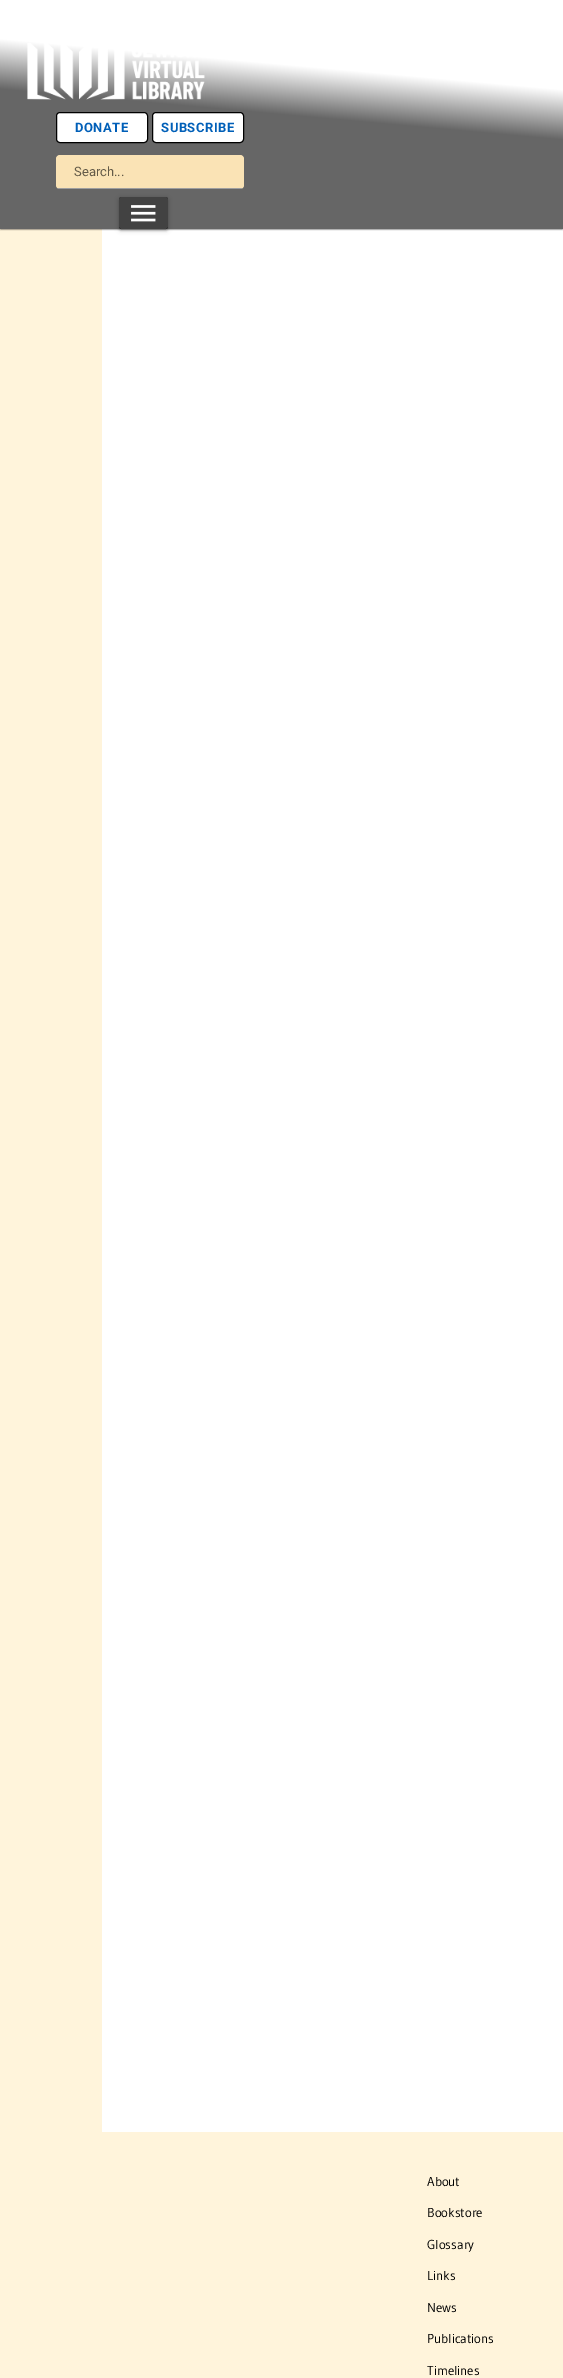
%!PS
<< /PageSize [563 2378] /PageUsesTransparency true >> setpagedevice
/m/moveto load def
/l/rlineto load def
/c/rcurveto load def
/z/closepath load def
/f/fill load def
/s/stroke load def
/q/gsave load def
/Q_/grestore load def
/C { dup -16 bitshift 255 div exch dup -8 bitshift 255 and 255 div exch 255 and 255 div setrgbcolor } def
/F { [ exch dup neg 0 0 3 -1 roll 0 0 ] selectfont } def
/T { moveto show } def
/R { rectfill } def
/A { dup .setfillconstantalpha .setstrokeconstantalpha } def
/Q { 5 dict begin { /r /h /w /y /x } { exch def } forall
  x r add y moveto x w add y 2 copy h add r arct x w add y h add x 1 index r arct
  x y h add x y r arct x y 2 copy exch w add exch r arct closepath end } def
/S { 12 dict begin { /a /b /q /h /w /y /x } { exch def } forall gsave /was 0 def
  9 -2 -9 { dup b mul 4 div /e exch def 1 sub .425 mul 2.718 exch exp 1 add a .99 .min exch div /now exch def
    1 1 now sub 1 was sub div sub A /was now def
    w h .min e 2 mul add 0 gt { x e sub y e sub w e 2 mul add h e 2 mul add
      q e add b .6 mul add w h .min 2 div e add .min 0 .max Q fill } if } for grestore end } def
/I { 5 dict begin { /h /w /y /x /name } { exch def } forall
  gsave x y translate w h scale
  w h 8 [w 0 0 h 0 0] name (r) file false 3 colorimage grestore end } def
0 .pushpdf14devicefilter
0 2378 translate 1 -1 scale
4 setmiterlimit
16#FFFFFF C
0 0 563 2378 R
16#FFF4DB C
0 229 102 1903 R
16#000000 C
0 1 563 229 0 .5 .1 S
1 2 561 227 0 .5 .5 S
0 1 563 229 0 .5 .14 S
q 0 0 m 563 0 l 0 229 l -563 0 l z clip newpath
<< /ShadingType 2 /ColorSpace /DeviceRGB /Coords [294 -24 269 253] /Extend [true true] /Function << /FunctionType 3 /Domain [0 1] /Functions [<< /FunctionType 2 /Domain [0 1] /C0 [1 1 1] /C1 [1 1 1] /N 1 >> << /FunctionType 2 /Domain [0 1] /C0 [1 1 1] /C1 [.4 .4 .4] /N 1 >> << /FunctionType 2 /Domain [0 1] /C0 [.4 .4 .4] /C1 [.4 .4 .4] /N 1 >>] /Bounds [.32 .5] /Encode [0 1 0 1 0 1] >> >> shfill Q_
(1.rgb) 27 43 178 57 I
16#FFFFFF C
56.5 112.5 91 30 3.5 Q q f Q_
16#000000 C
s
/Roboto-Bold 13 F
16#005FB8 C
75 132 m .5 0 (DONATE) ashow
16#FFFFFF C
152.5 112.5 91 30 3.5 Q q f Q_
16#000000 C
s
16#005FB8 C
161 132 m .5 0 (SUBSCRIBE) ashow
16#FAE3B5 C
56 155 188 34 4 Q f
16#9E9E9E C
58 188 184 1 R
/Roboto-Regular 13 F
16#645B48 C
(Search...) 74 176 T
q
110 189 m 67 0 l 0 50 l -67 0 l z 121 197 m 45 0 l 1 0 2 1 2 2 c 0 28 l 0 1 -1 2 -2 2 c -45 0 l -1 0 -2 -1 -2 -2 c 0 -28 l 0 -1 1 -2 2 -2 c z eoclip newpath
16#000000 C
119 198 49 32 2 2.5 .2 S
Q_
q
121 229 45 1 rectclip
16#000000 C
121 202 45 28 0 .5 .12 S
Q_
q
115 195 m 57 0 l 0 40 l -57 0 l z 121 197 m 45 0 l 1 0 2 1 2 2 c 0 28 l 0 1 -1 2 -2 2 c -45 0 l -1 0 -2 -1 -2 -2 c 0 -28 l 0 -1 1 -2 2 -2 c z eoclip newpath
16#000000 C
119 199 49 32 2 1 .14 S
Q_
0.35 A
16#000000 C
119 197 49 32 2 Q f
1 A
(2.rgb) 131 205 25 17 I
16#FFF4DB C
0 2132 563 246 R
/Gudea-Regular 13 F
16#000000 C
(About) 427 2186 T
(Bookstore) 427 2217 T
(Glossary) 427 2249 T
(Links) 427 2280 T
(News) 427 2312 T
(Publications) 427 2343 T
(Timelines) 427 2375 T
.poppdf14devicefilter showpage
